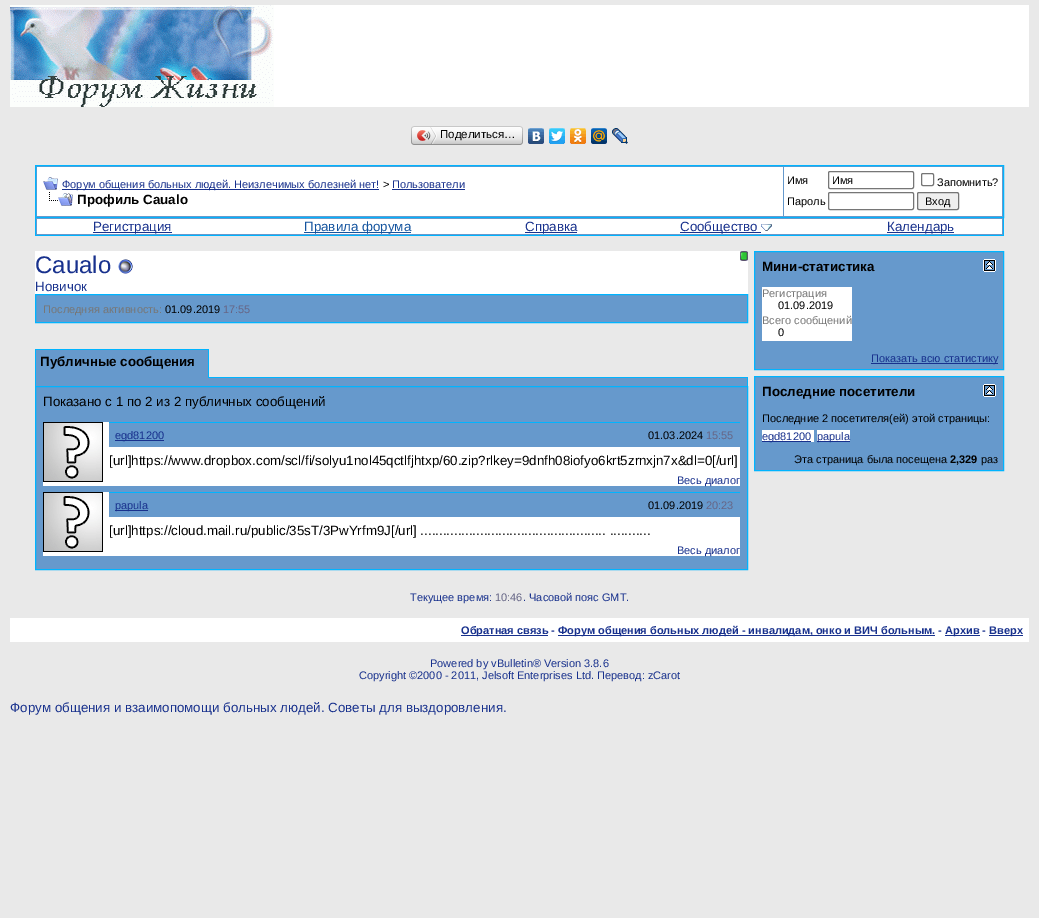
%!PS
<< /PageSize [1039 918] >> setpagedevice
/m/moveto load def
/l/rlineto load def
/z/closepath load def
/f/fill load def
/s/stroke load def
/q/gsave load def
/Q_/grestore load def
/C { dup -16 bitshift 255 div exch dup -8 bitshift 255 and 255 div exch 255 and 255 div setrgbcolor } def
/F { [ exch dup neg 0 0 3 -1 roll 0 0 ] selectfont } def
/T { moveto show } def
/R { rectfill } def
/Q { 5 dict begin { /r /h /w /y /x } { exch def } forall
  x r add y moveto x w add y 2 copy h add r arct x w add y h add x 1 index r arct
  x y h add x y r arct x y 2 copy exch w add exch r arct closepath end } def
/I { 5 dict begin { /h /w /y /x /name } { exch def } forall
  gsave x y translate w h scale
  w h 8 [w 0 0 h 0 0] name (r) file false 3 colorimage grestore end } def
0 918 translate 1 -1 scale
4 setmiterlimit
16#E9E9E9 C
0 0 1039 918 R
16#FFFFFF C
274 5 755 102 R
(1.rgb) 10 5 264 102 I
(2.rgb) 414 126 106 19 I
(3.rgb) 411 126 3 19 I
(4.rgb) 417 127 20 17 I
/LiberationSans-Regular 11.5 F
16#000000 C
(Поделиться…) 440 138 T
(5.rgb) 520 126 3 19 I
(6.rgb) 528 128 16 16 I
(7.rgb) 549 128 16 16 I
(8.rgb) 570 128 16 16 I
(9.rgb) 591 128 16 16 I
(10.rgb) 612 128 16 16 I
16#6699CC C
35.5 165.5 m 968 0 l 0 52 l -968 0 l z q f Q_
16#00B4FF C
s
16#FFFFFF C
37 167 746 49 R
(11.rgb) 43 177 15 13 I
16#18318D C
62 189 317 1 R
/LiberationSans-Regular 11 F
(Форум общения больных людей. Неизлечимых болезней нет!) 62 188 T
16#000000 C
(>) 383 188 T
16#18318D C
(Пользователи) 392 188 T
392 189 73 1 R
(12.rgb) 49 192 24 14 I
/LiberationSans-Bold 13.35 F
16#000000 C
(Профиль Caualo) 77 204 T
16#FFFFFF C
784 167 218 49 R
/LiberationSans-Regular 11 F
16#000000 C
(Имя) 787 184 T
16#767676 C
828.5 171.5 85 17 1.5 Q s
16#000000 C
(Имя) 832 184 T
16#767676 C
921.5 173.5 12 12 1.5 Q s
16#000000 C
(Запомнить?) 937 186 T
(Пароль) 787 205 T
16#767676 C
828.5 192.5 85 17 1.5 Q s
16#EFEFEF C
917.5 192.5 41 17 1.5 Q q f Q_
16#767676 C
s
16#000000 C
(Вход) 925 205 T
16#6699CC C
36 218 967 17 R
16#00B4FF C
1003 218 1 18 R
35 235 969 1 R
35 218 1 18 R
16#FFFFFF C
37 219 965 15 R
16#18318D C
93 232 79 1 R
/LiberationSans-Regular 13.35 F
(Регистрация) 93 231 T
16#14549F C
304 232 107 1 R
(Правила форума) 304 231 T
16#18318D C
525 232 52 1 R
(Справка) 525 231 T
680 232 81 1 R
(Сообщество) 680 231 T
(13.rgb) 761 224 11 7 I
887 232 67 1 R
(Календарь) 887 231 T
16#FFFFFF C
35 251 713 43 R
/LiberationSans-Regular 24 F
16#18318D C
(Caualo) 35 273 T
(14.rgb) 118 259 15 15 I
(15.rgb) 740 251 8 10 I
/LiberationSans-Regular 13.35 F
(Новичок) 35 291 T
16#6699CC C
35.5 294.5 m 712 0 l 0 28 l -712 0 l z q f Q_
16#00B4FF C
s
/LiberationSans-Regular 11 F
16#777777 C
(Последняя активность:) 43 313 T
16#000000 C
(01.09.2019) 165 313 T
16#666686 C
(17:55) 223 313 T
16#6699CC C
36 350 172 28 R
16#00B4FF C
35 349 174 1 R
208 349 1 29 R
35 377 1 9 R
35 349 1 29 R
/LiberationSans-Bold 13.35 F
16#000000 C
(Публичные сообщения) 40 366 T
16#6699CC C
36 378 711 8 R
16#00B4FF C
209 377 539 1 R
747 377 1 9 R
16#6699CC C
35.5 386.5 m 712 0 l 0 183 l -712 0 l z q f Q_
16#00B4FF C
s
/LiberationSans-Regular 13.35 F
16#000000 C
(Показано с 1 по 2 из 2 публичных сообщений) 43 406 T
16#FFFFFF C
43 422 697 64 R
(16.rgb) 43 422 60 60 I
16#6699CC C
109 423 631 24 R
16#00B4FF C
109 422 631 1 R
16#18318D C
115 440 49 1 R
/LiberationSans-Regular 11 F
(egd81200) 115 439 T
16#000000 C
(01.03.2024) 648 439 T
16#666686 C
(15:55) 706 439 T
/LiberationSans-Regular 13.35 F
16#000000 C
([url]https://www.dropbox.com/scl/fi/solyu1nol45qctlfjhtxp/60.zip?rlkey=9dnfh08iofyo6krt5zrnxjn7x&dl=0[/url]) 109 465 T
/LiberationSans-Regular 11 F
16#18318D C
(Весь диалог) 677 484 T
16#FFFFFF C
43 492 697 64 R
(16.rgb) 43 492 60 60 I
16#6699CC C
109 493 631 24 R
16#00B4FF C
109 492 631 1 R
16#18318D C
115 510 33 1 R
(papula) 115 509 T
16#000000 C
(01.09.2019) 648 509 T
16#666686 C
(20:23) 706 509 T
/LiberationSans-Regular 13.35 F
16#000000 C
([url]https://cloud.mail.ru/public/35sT/3PwYrfm9J[/url] .................................................. ...........) 109 535 T
/LiberationSans-Regular 11 F
16#18318D C
(Весь диалог) 677 554 T
16#6699CC C
754.5 251.5 m 249 0 l 0 118 l -249 0 l z q f Q_
16#00B4FF C
s
/LiberationSans-Bold 13.35 F
16#000000 C
(Мини-статистика) 762 271 T
(17.rgb) 983 259 13 13 I
16#FFFFFF C
762 287 90 54 R
/LiberationSans-Regular 11 F
16#777777 C
(Регистрация) 762 297 T
16#000000 C
(01.09.2019) 778 309 T
16#777777 C
(Всего сообщений) 762 324 T
16#000000 C
(0) 778 336 T
16#18318D C
871 363 127 1 R
(Показать всю статистику) 871 362 T
16#6699CC C
754.5 376.5 m 249 0 l 0 94 l -249 0 l z q f Q_
16#00B4FF C
s
/LiberationSans-Bold 13.35 F
16#000000 C
(Последние посетители) 762 396 T
(17.rgb) 983 384 13 13 I
/LiberationSans-Regular 11 F
(Последние 2 посетителя\(ей\) этой страницы:) 762 422 T
16#FFFFFF C
762 430 49 11 R
16#18318D C
762 441 49 1 R
(egd81200) 762 440 T
16#FFFFFF C
811 430 3 12 R
817 430 33 11 R
16#18318D C
817 441 33 1 R
(papula) 817 440 T
16#000000 C
(Эта страница была посещена) 794 463 T
/LiberationSans-Bold 11 F
(2,329) 950 463 T
/LiberationSans-Regular 11 F
(раз) 981 463 T
16#18318D C
(Текущее время:) 410 601 T
16#666686 C
(10:46) 495 601 T
16#18318D C
(. Часовой пояс GMT.) 523 601 T
16#FFFFFF C
10 618 1019 24 R
16#18318D C
461 635 87 1 R
/LiberationSans-Bold 11 F
(Обратная связь -) 461 634 T
558 635 377 1 R
(Форум общения больных людей - инвалидам, онко и ВИЧ больным. -) 558 634 T
945 635 35 1 R
(Архив -) 945 634 T
989 635 34 1 R
(Вверх) 989 634 T
/LiberationSans-Regular 11 F
(Powered by vBulletin® Version 3.8.6) 430 667 T
(Copyright ©2000 - 2011, Jelsoft Enterprises Ltd. Перевод: zCarot) 359 679 T
/LiberationSans-Regular 13.35 F
(Форум общения и взаимопомощи больных людей. Советы для выздоровления.) 10 712 T
showpage
